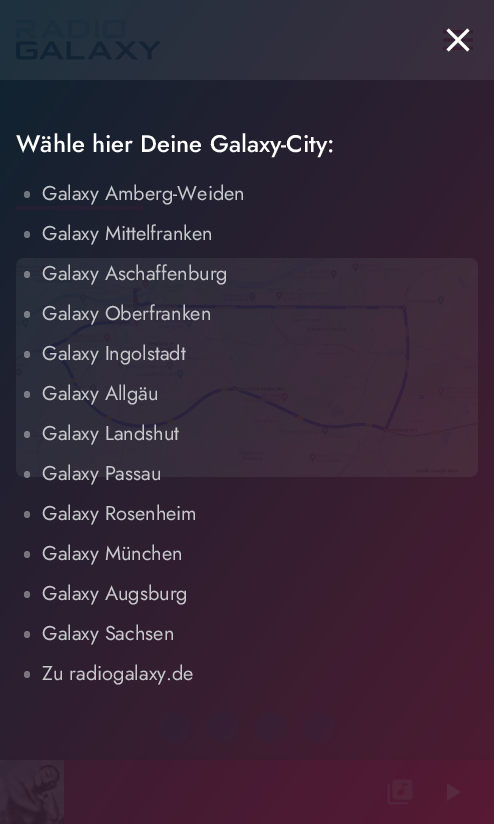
%!PS
<< /PageSize [494 824] /PageUsesTransparency true >> setpagedevice
/m/moveto load def
/l/rlineto load def
/z/closepath load def
/f/fill load def
/q/gsave load def
/Q_/grestore load def
/C { dup -16 bitshift 255 div exch dup -8 bitshift 255 and 255 div exch 255 and 255 div setrgbcolor } def
/F { [ exch dup neg 0 0 3 -1 roll 0 0 ] selectfont } def
/T { moveto show } def
/R { rectfill } def
/A { dup .setfillconstantalpha .setstrokeconstantalpha } def
/O { newpath 0 360 arc closepath } def
/Q { 5 dict begin { /r /h /w /y /x } { exch def } forall
  x r add y moveto x w add y 2 copy h add r arct x w add y h add x 1 index r arct
  x y h add x y r arct x y 2 copy exch w add exch r arct closepath end } def
/S { 12 dict begin { /a /b /q /h /w /y /x } { exch def } forall gsave /was 0 def
  9 -2 -9 { dup b mul 4 div /e exch def 1 sub .425 mul 2.718 exch exp 1 add a .99 .min exch div /now exch def
    1 1 now sub 1 was sub div sub A /was now def
    w h .min e 2 mul add 0 gt { x e sub y e sub w e 2 mul add h e 2 mul add
      q e add b .6 mul add w h .min 2 div e add .min 0 .max Q fill } if } for grestore end } def
/I { 5 dict begin { /h /w /y /x /name } { exch def } forall
  gsave x y translate w h scale
  w h 8 [w 0 0 h 0 0] name (r) file false 3 colorimage grestore end } def
0 .pushpdf14devicefilter
0 824 translate 1 -1 scale
4 setmiterlimit
16#FFFFFF C
0 0 494 824 R
(1.rgb) 16 20 145 40 I
(2.rgb) 443 30 30 20 I
q 0 80 m 494 0 l 0 680 l -494 0 l z clip newpath
<< /ShadingType 2 /ColorSpace /DeviceRGB /Coords [-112 160 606 664] /Extend [true true] /Function << /FunctionType 2 /Domain [0 1] /C0 [.051 .137 .188] /C1 [.31 .106 .192] /N 1 >> >> shfill Q_
16#D40055 C
16 206 128 4 R
(3.rgb) 16 258 462 219 I
16#003E65 C
175 727 16 O f
223 727 16 O f
271 727 16 O f
319 727 16 O f
16#000000 C
-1 759 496 2 0 7.5 .5 S
16#D40055 C
64 760 430 64 R
(5.rgb) 0 760 64 64 I
(6.rgb) 387 779 26 26 I
16#FFFFFF C
447 783.5 m 13.5 8.5 l -13.5 8.5 l z f
0.93 A
q 0 0 m 494 0 l 0 824 l -494 0 l z clip newpath
<< /ShadingType 2 /ColorSpace /DeviceRGB /Coords [-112 160 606 664] /Extend [true true] /Function << /FunctionType 2 /Domain [0 1] /C0 [.051 .137 .188] /C1 [.31 .106 .192] /N 1 >> >> shfill Q_
1 A
(4.rgb) 446 28 24 24 I
/Jost-Medium 24 F
(Wähle hier Deine Galaxy-City:) 16 152 T
16#6E757E C
24 191 6 7 3 Q f
/Jost-Regular 20 F
16#C7C8CC C
(Galaxy Amberg-Weiden) 42 200 T
0.38 A
16#FFFFFF C
24 231 6 7 3 Q f
1 A
16#C7C8CC C
(Galaxy Mittelfranken) 42 240 T
0.38 A
16#FFFFFF C
24 271 6 7 3 Q f
1 A
16#C7C8CC C
(Galaxy Aschaffenburg) 42 280 T
0.38 A
16#FFFFFF C
24 311 6 7 3 Q f
1 A
16#C7C8CC C
(Galaxy Oberfranken) 42 320 T
0.38 A
16#FFFFFF C
24 351 6 7 3 Q f
1 A
16#C7C8CC C
(Galaxy Ingolstadt) 42 360 T
16#7B7D86 C
24 391 6 7 3 Q f
16#C7C8CC C
(Galaxy Allgäu) 42 400 T
0.38 A
16#FFFFFF C
24 431 6 7 3 Q f
1 A
16#C7C8CC C
(Galaxy Landshut) 42 440 T
0.38 A
16#FFFFFF C
24 471 6 7 3 Q f
1 A
16#C7C8CC C
(Galaxy Passau) 42 480 T
16#77747E C
24 511 6 7 3 Q f
16#C7C8CC C
(Galaxy Rosenheim) 42 520 T
16#78747E C
24 551 6 7 3 Q f
16#C7C8CC C
(Galaxy München) 42 560 T
0.38 A
16#FFFFFF C
24 591 6 7 3 Q f
1 A
16#C7C8CC C
(Galaxy Augsburg) 42 600 T
16#7A737E C
24 631 6 7 3 Q f
16#C7C8CC C
(Galaxy Sachsen) 42 640 T
16#7B737E C
24 671 6 7 3 Q f
16#C7C8CC C
(Zu radiogalaxy.de) 42 680 T
.poppdf14devicefilter showpage
